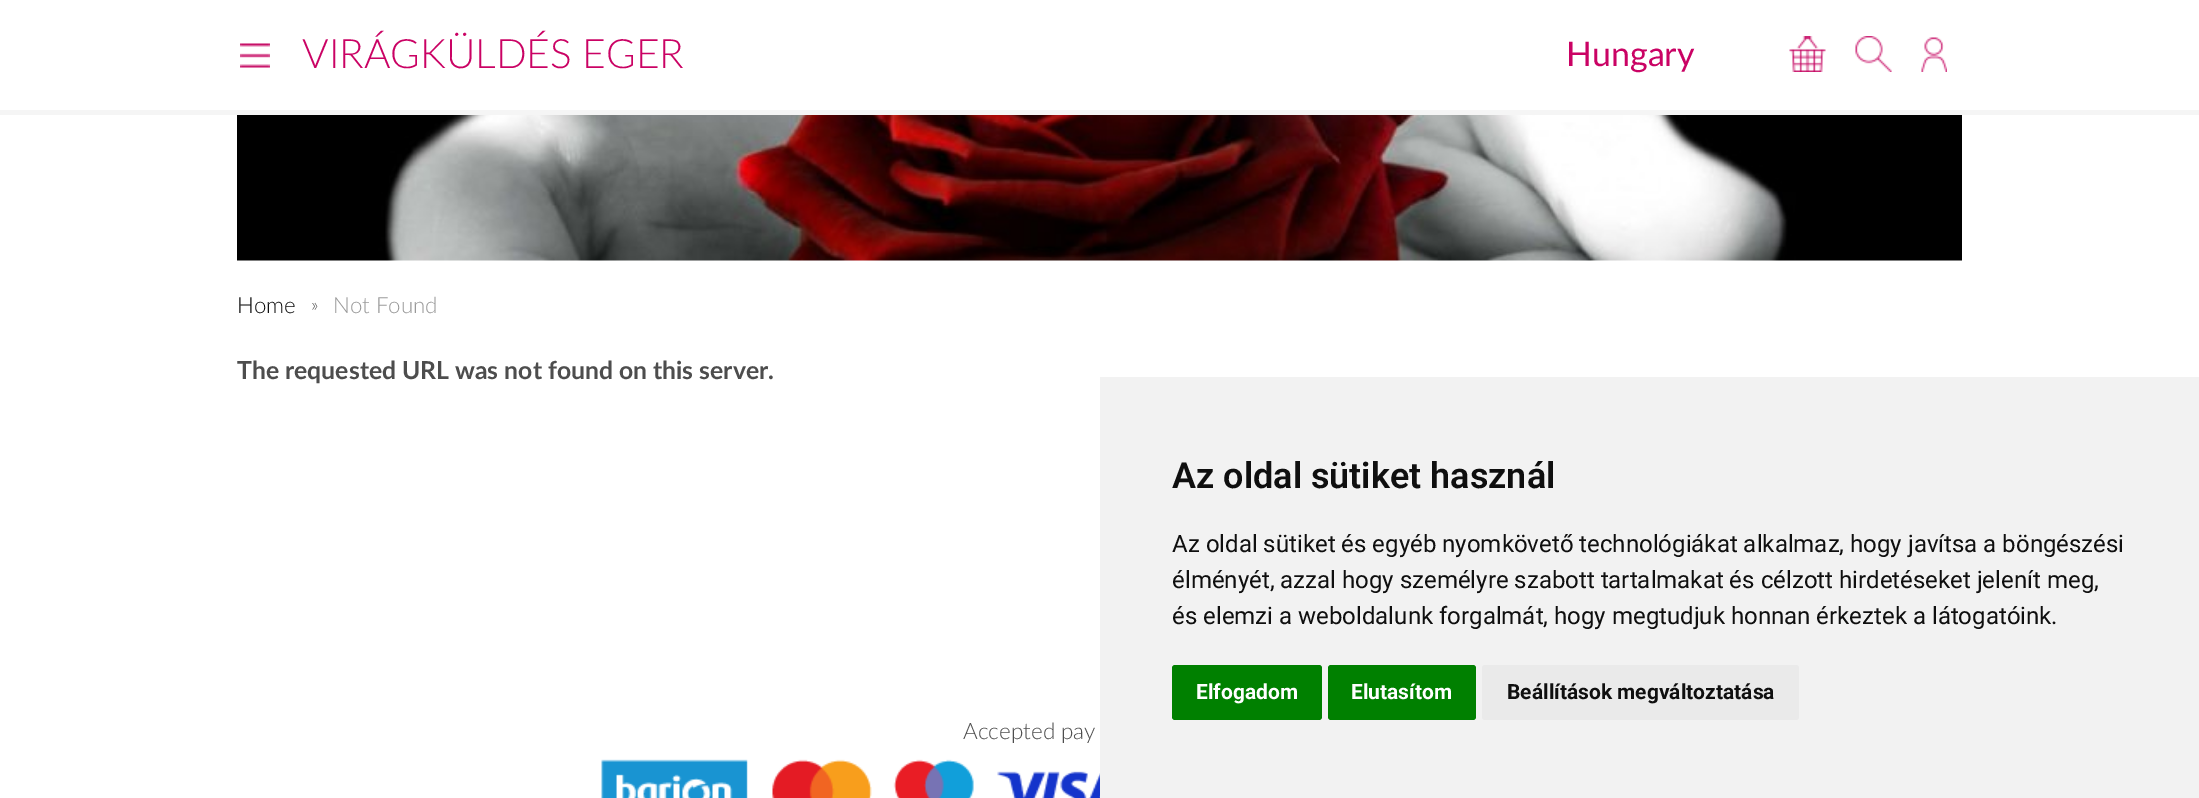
%!PS
<< /PageSize [2199 798] >> setpagedevice
/f/fill load def
/C { dup -16 bitshift 255 div exch dup -8 bitshift 255 and 255 div exch 255 and 255 div setrgbcolor } def
/F { [ exch dup neg 0 0 3 -1 roll 0 0 ] selectfont } def
/T { moveto show } def
/R { rectfill } def
/Q { 5 dict begin { /r /h /w /y /x } { exch def } forall
  x r add y moveto x w add y 2 copy h add r arct x w add y h add x 1 index r arct
  x y h add x y r arct x y 2 copy exch w add exch r arct closepath end } def
/I { 5 dict begin { /h /w /y /x /name } { exch def } forall
  gsave x y translate w h scale
  w h 8 [w 0 0 h 0 0] name (r) file false 3 colorimage grestore end } def
0 798 translate 1 -1 scale
4 setmiterlimit
16#FFFFFF C
0 0 2199 798 R
16#F5F5F5 C
0 110 2199 5 R
(1.rgb) 240 43 30 25 I
/Lato-Light 40.5 F
16#CA0264 C
(VIRÁGKÜLDÉS EGER) 302 68 T
/Lato-Regular 34 F
(Hungary) 1566 66 T
(2.rgb) 1789 36 37 36 I
(3.rgb) 1855 36 37 36 I
(4.rgb) 1921 37 26 35 I
(5.rgb) 237 115 1725 146 I
/Lato-Light 22.25 F
16#0F0F0F C
(Home) 237 313 T
/Lato-Light 18 F
16#4D4D4D C
(») 311 311 T
/Lato-Light 22.25 F
16#999999 C
(Not Found) 333 313 T
/Lato-Bold 24.75 F
16#4D4D4D C
(The requested URL was not found on this server.) 237 379 T
16#F2F2F2 C
1100 377 1099 421 R
/Roboto-SemiBold 36 F
16#0F0F0F C
(Az oldal sütiket használ) 1172 488 T
/Roboto-Regular 24 F
(Az oldal sütiket és egyéb nyomkövető technológiákat alkalmaz, hogy javítsa a böngészési) 1172 552 T
(élményét, azzal hogy személyre szabott tartalmakat és célzott hirdetéseket jelenít meg,) 1172 588 T
(és elemzi a weboldalunk forgalmát, hogy megtudjuk honnan érkeztek a látogatóink.) 1172 624 T
16#008000 C
1172 665 150 55 3 Q f
/Roboto-Bold 21 F
16#FFFFFF C
(Elfogadom) 1196 699 T
16#008000 C
1328 665 148 55 3 Q f
16#FFFFFF C
(Elutasítom) 1351 699 T
16#EAEAEA C
1482 665 317 55 3 Q f
16#0F0F0F C
(Beállítások megváltoztatása) 1507 699 T
/Lato-Light 22.5 F
16#4D4D4D C
(Accepted pay) 963 739 T
(6.rgb) 601 759 499 39 I
showpage
